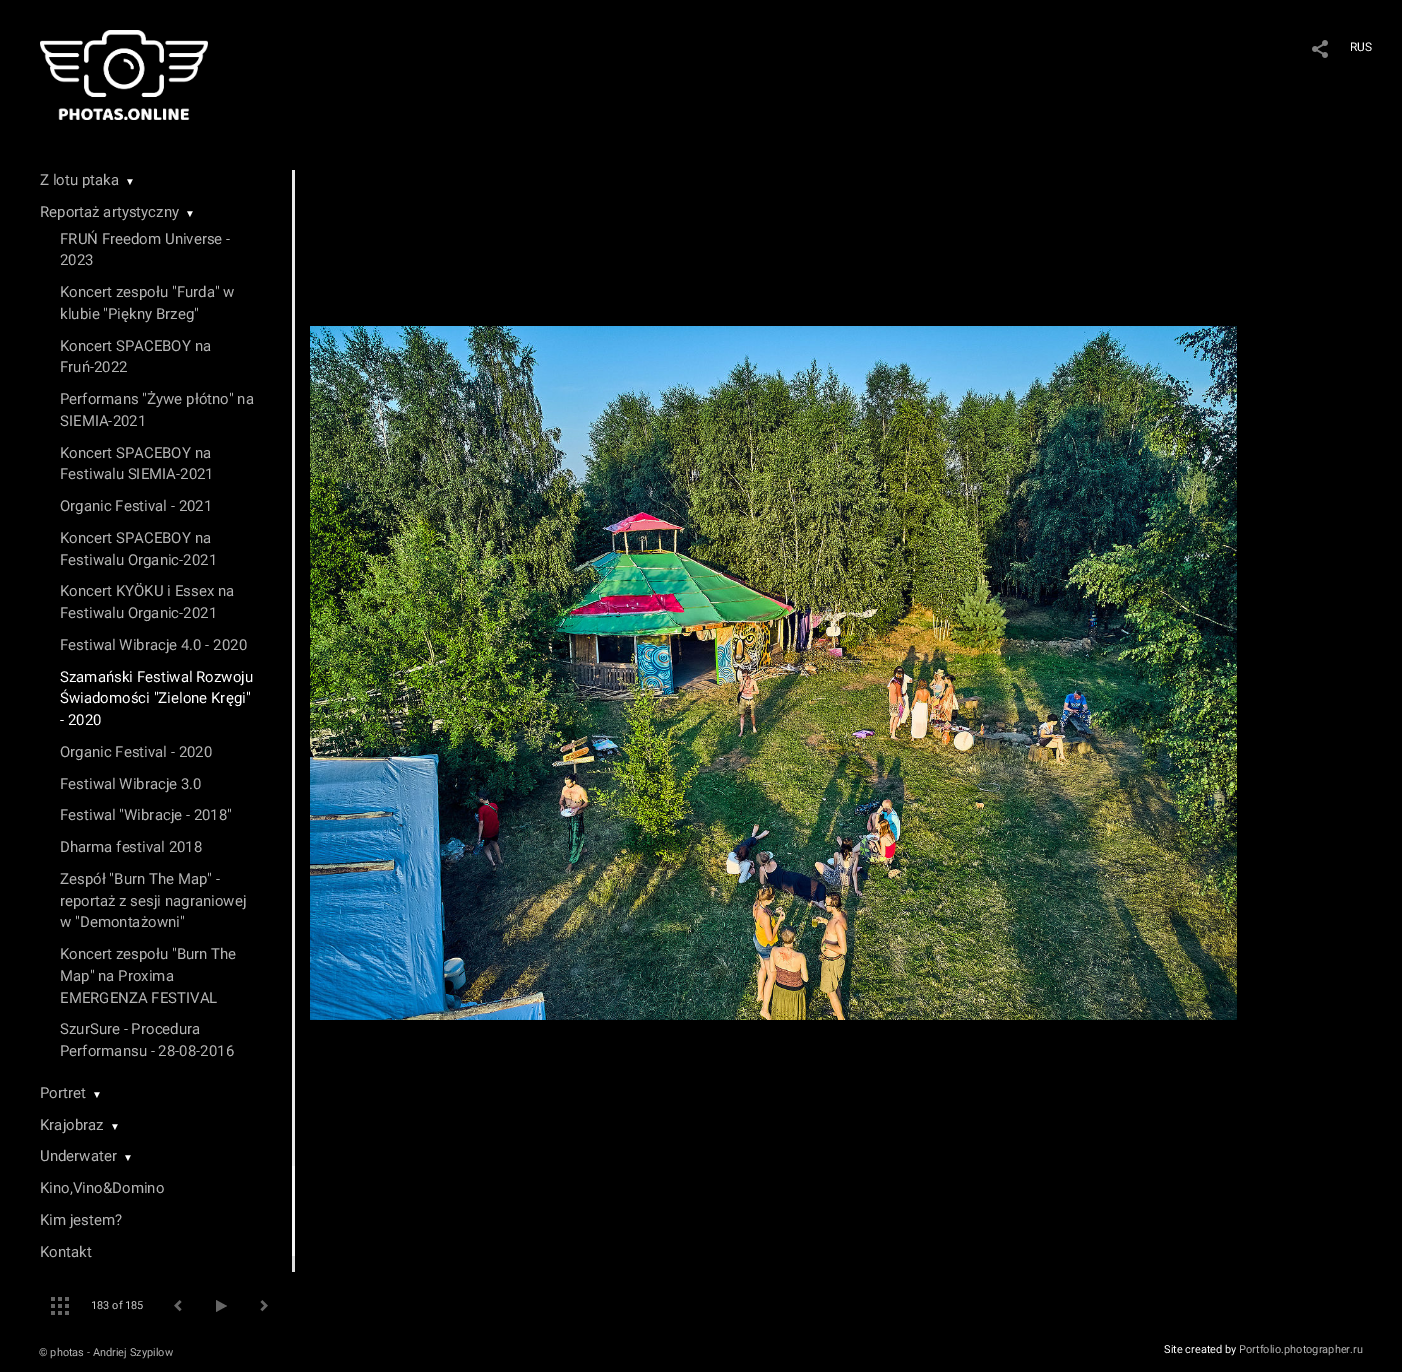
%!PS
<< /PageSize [1402 1372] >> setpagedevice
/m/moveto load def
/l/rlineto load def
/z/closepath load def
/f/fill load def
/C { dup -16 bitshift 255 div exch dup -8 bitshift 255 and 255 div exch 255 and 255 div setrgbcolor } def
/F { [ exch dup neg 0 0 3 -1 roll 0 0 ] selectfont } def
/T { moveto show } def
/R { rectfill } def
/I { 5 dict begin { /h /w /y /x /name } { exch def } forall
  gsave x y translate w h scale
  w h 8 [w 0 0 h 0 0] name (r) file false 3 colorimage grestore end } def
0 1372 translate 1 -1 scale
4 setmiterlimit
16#000000 C
0 0 1402 1372 R
(1.rgb) 1312 40 16 18 I
/Roboto-Regular 12 F
16#FFFFFF C
(RUS) 1350 51 T
(2.rgb) 310 326 927 694 I
(3.rgb) 40 30 168 90 I
/Roboto-Regular 15 F
16#B3B3B3 C
(Z lotu ptaka) 40 185 T
/LiberationSerif-Regular 10 F
16#FFFFFF C
(▼) 125 185 T
/Roboto-Regular 15 F
16#B3B3B3 C
(Reportaż artystyczny) 40 217 T
/LiberationSerif-Regular 10 F
16#FFFFFF C
(▼) 185 217 T
/Roboto-Regular 15 F
16#B3B3B3 C
(FRUŃ Freedom Universe -) 60 244 T
(2023) 60 265 T
(Koncert zespołu "Furda" w) 60 297 T
(klubie "Piękny Brzeg") 60 319 T
(Koncert SPACEBOY na) 60 351 T
(Fruń-2022) 60 372 T
(Performans "Żywe płótno" na) 60 404 T
(SIEMIA-2021) 60 426 T
(Koncert SPACEBOY na) 60 458 T
(Festiwalu SIEMIA-2021) 60 479 T
(Organic Festival - 2021) 60 511 T
(Koncert SPACEBOY na) 60 543 T
(Festiwalu Organic-2021) 60 565 T
(Koncert KYÖKU i Essex na) 60 596 T
(Festiwalu Organic-2021) 60 618 T
(Festiwal Wibracje 4.0 - 2020) 60 650 T
16#FFFFFF C
(Szamański Festiwal Rozwoju) 60 682 T
(Świadomości "Zielone Kręgi") 60 703 T
(- 2020) 60 725 T
16#B3B3B3 C
(Organic Festival - 2020) 60 757 T
(Festiwal Wibracje 3.0) 60 789 T
(Festiwal "Wibracje - 2018") 60 820 T
(Dharma festival 2018) 60 852 T
(Zespół "Burn The Map" -) 60 884 T
(reportaż z sesji nagraniowej) 60 906 T
(w "Demontażowni") 60 927 T
(Koncert zespołu "Burn The) 60 959 T
(Map" na Proxima) 60 981 T
(EMERGENZA FESTIVAL) 60 1003 T
(SzurSure - Procedura) 60 1034 T
(Performansu - 28-08-2016) 60 1056 T
(Portret) 40 1098 T
/LiberationSerif-Regular 10 F
16#FFFFFF C
(▼) 92 1098 T
/Roboto-Regular 15 F
16#B3B3B3 C
(Krajobraz) 40 1130 T
/LiberationSerif-Regular 10 F
16#FFFFFF C
(▼) 110 1130 T
/Roboto-Regular 15 F
16#B3B3B3 C
(Underwater) 40 1161 T
/LiberationSerif-Regular 10 F
16#FFFFFF C
(▼) 123 1161 T
/Roboto-Regular 15 F
16#B3B3B3 C
(Kino,Vino&Domino) 40 1193 T
(Kim jestem?) 40 1225 T
(Kontakt) 40 1257 T
16#EBEBEB C
292 170 3 996 R
16#F8F8F8 C
292 1166 3 90 R
16#DDDDDD C
292 1256 3 16 R
(4.rgb) 51 1297 18 18 I
/Roboto-Regular 11 F
16#CCCCCC C
(183 of 185) 91 1309 T
(5.rgb) 174 1300 8 12 I
16#666666 C
227 1306 m -11 6 l 0 -12 l z f
(6.rgb) 260 1300 8 12 I
16#B3B3B3 C
(© photas - Andriej Szypilow) 39 1356 T
16#FFFFFF C
(Site created by) 1164 1353 T
16#B3B3B3 C
(Portfolio.photographer.ru) 1239 1353 T
showpage
